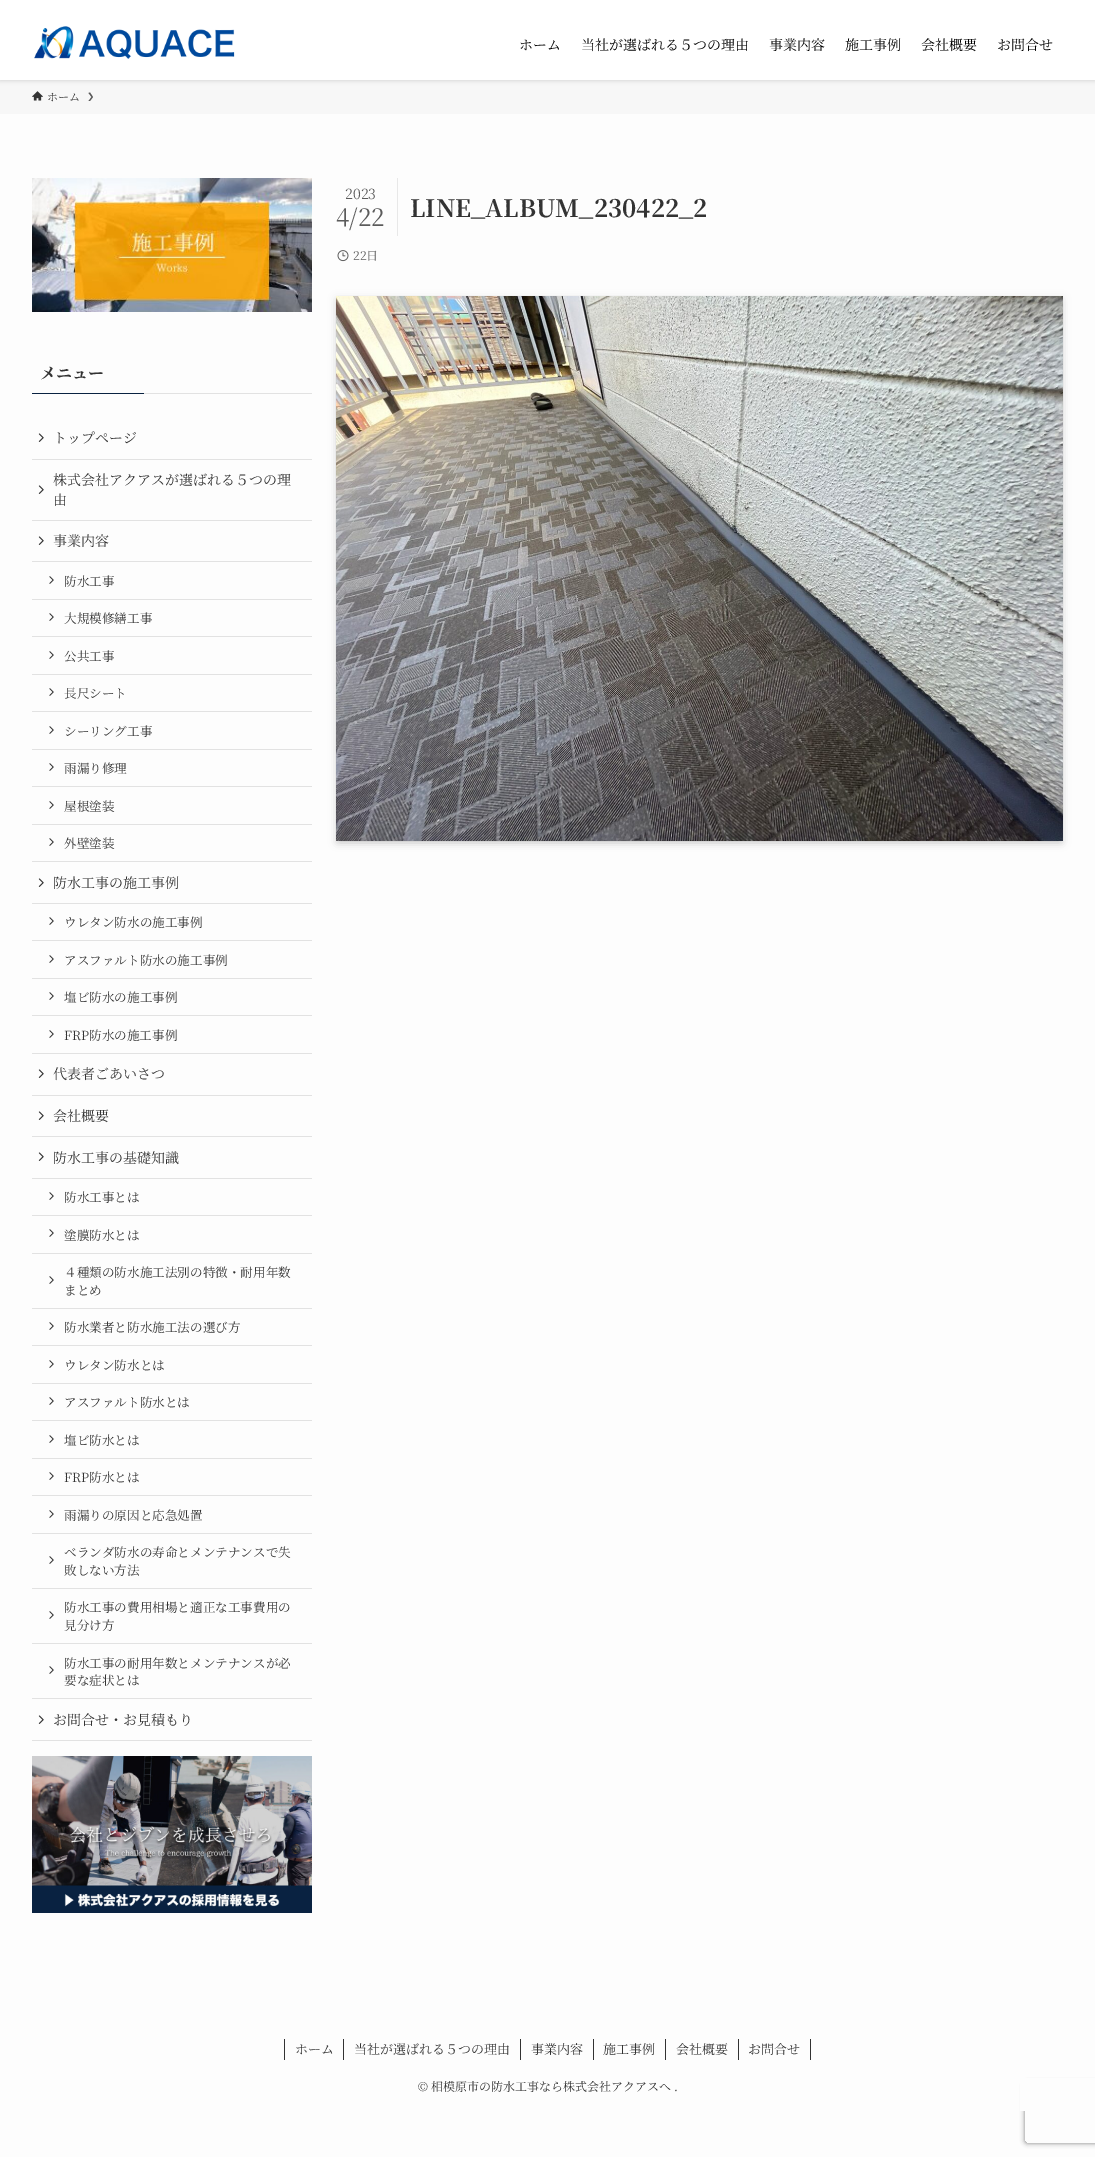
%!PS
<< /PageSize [1095 2157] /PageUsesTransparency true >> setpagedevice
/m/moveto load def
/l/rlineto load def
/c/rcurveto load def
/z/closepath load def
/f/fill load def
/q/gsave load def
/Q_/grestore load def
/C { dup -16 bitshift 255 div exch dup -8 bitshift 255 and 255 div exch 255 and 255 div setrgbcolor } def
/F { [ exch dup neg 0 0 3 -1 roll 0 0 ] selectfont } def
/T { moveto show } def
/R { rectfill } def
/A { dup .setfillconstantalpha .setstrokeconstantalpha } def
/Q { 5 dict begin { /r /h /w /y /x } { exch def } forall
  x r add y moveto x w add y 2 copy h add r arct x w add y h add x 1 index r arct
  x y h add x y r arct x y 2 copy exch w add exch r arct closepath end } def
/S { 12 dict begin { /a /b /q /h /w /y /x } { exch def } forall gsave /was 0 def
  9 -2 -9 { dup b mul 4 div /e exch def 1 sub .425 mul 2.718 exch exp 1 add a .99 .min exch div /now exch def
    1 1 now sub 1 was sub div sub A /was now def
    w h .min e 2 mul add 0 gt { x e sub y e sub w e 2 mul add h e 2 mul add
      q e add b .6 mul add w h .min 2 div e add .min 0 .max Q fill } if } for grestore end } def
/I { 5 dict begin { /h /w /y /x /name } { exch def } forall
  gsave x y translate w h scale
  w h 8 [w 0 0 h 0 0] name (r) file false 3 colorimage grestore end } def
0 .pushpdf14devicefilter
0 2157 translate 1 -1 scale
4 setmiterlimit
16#FDFDFD C
0 0 1095 2157 R
16#F7F7F7 C
0 80 1095 34 R
16#000000 C
0 1 1095 80 0 2 .12 S
16#FFFFFF C
0 0 1095 80 R
(1.rgb) 34 26 201 33 I
/NotoSerifJP-Regular 14 F
16#000000 C
(ホーム) 519 50 T
(当社が選ばれる５つの理由) 581 50 T
(事業内容) 769 50 T
(施工事例) 845 50 T
(会社概要) 921 50 T
(お問合せ) 997 50 T
(2.rgb) 32 91 11 10 I
/NotoSerifJP-Regular 11 F
16#333333 C
(ホーム) 47 101 T
16#5A5A5A C
90 92.5 m -1.5 .5 l 3 4 l -3 4 l 1.5 0 l 3 -4 l z f
16#E8E8E8 C
397 178 1 58 R
/NotoSerifJP-Regular 14 F
16#5B5B5B C
(2023) 345 199 T
/NotoSerifJP-Regular 24 F
(4/22) 336 226 T
/NotoSerifJP-Bold 24 F
16#333333 C
(LINE_ALBUM_230422_2) 410 217 T
(3.rgb) 337 250 12 12 I
/NotoSerifJP-Regular 12 F
16#5B5B5B C
(22日) 353 260 T
16#000000 C
340 304 719 537 0 4 .2 S
336 298 727 545 0 4 .1 S
(4.rgb) 336 296 727 545 I
(5.rgb) 32 178 280 134 I
/NotoSerifJP-Bold 16 F
16#333333 C
(メニュー) 40 379 T
16#092241 C
32 393 112 1 R
16#E2E2E2 C
144 393 168 1 R
32 459 280 1 R
(6.rgb) 38 433 6 9 I
/NotoSerifJP-Regular 14 F
16#333333 C
(トップページ) 53 443 T
16#E2E2E2 C
32 520 280 1 R
16#333333 C
(株式会社アクアスが選ばれる５つの理) 53 485 T
(6.rgb) 38 485 6 9 I
(由) 53 505 T
16#E2E2E2 C
32 561 280 1 R
(6.rgb) 38 536 6 9 I
16#333333 C
(事業内容) 53 546 T
16#E2E2E2 C
32 599 280 1 R
(7.rgb) 49 576 5 8 I
/NotoSerifJP-Regular 12.6 F
16#333333 C
(防水工事) 64 586 T
16#E2E2E2 C
32 636 280 1 R
(7.rgb) 49 613 5 8 I
16#333333 C
(大規模修繕工事) 64 623 T
16#E2E2E2 C
32 674 280 1 R
(7.rgb) 49 651 5 8 I
16#333333 C
(公共工事) 64 661 T
16#E2E2E2 C
32 711 280 1 R
(7.rgb) 49 688 5 8 I
16#333333 C
(長尺シート) 64 698 T
16#E2E2E2 C
32 749 280 1 R
(7.rgb) 49 726 5 8 I
16#333333 C
(シーリング工事) 64 736 T
16#E2E2E2 C
32 786 280 1 R
(7.rgb) 49 763 5 8 I
16#333333 C
(雨漏り修理) 64 773 T
16#E2E2E2 C
32 824 280 1 R
(7.rgb) 49 801 5 8 I
16#333333 C
(屋根塗装) 64 811 T
16#E2E2E2 C
32 861 280 1 R
(7.rgb) 49 838 5 8 I
16#333333 C
(外壁塗装) 64 848 T
16#E2E2E2 C
32 903 280 1 R
(6.rgb) 38 878 6 9 I
/NotoSerifJP-Regular 14 F
16#333333 C
(防水工事の施工事例) 53 888 T
16#E2E2E2 C
32 940 280 1 R
(7.rgb) 49 917 5 8 I
/NotoSerifJP-Regular 12.6 F
16#333333 C
(ウレタン防水の施工事例) 64 927 T
16#E2E2E2 C
32 978 280 1 R
(7.rgb) 49 955 5 8 I
16#333333 C
(アスファルト防水の施工事例) 64 965 T
16#E2E2E2 C
32 1015 280 1 R
(7.rgb) 49 992 5 8 I
16#333333 C
(塩ビ防水の施工事例) 64 1002 T
16#E2E2E2 C
32 1053 280 1 R
(7.rgb) 49 1030 5 8 I
16#333333 C
(FRP防水の施工事例) 64 1040 T
16#E2E2E2 C
32 1095 280 1 R
(6.rgb) 38 1069 6 9 I
/NotoSerifJP-Regular 14 F
16#333333 C
(代表者ごあいさつ) 53 1079 T
16#E2E2E2 C
32 1136 280 1 R
(6.rgb) 38 1111 6 9 I
16#333333 C
(会社概要) 53 1121 T
16#E2E2E2 C
32 1178 280 1 R
(6.rgb) 38 1152 6 9 I
16#333333 C
(防水工事の基礎知識) 53 1163 T
16#E2E2E2 C
32 1215 280 1 R
(7.rgb) 49 1192 5 8 I
/NotoSerifJP-Regular 12.6 F
16#333333 C
(防水工事とは) 64 1202 T
16#E2E2E2 C
32 1253 280 1 R
(7.rgb) 49 1229 5 8 I
16#333333 C
(塗膜防水とは) 64 1240 T
16#E2E2E2 C
32 1308 280 1 R
16#333333 C
(４種類の防水施工法別の特徴・耐用年数) 64 1277 T
(7.rgb) 49 1276 5 8 I
(まとめ) 64 1295 T
16#E2E2E2 C
32 1345 280 1 R
(7.rgb) 49 1322 5 8 I
16#333333 C
(防水業者と防水施工法の選び方) 64 1332 T
16#E2E2E2 C
32 1383 280 1 R
(7.rgb) 49 1360 5 8 I
16#333333 C
(ウレタン防水とは) 64 1370 T
16#E2E2E2 C
32 1420 280 1 R
(7.rgb) 49 1397 5 8 I
16#333333 C
(アスファルト防水とは) 64 1407 T
16#E2E2E2 C
32 1458 280 1 R
(7.rgb) 49 1435 5 8 I
16#333333 C
(塩ビ防水とは) 64 1445 T
16#E2E2E2 C
32 1495 280 1 R
(7.rgb) 49 1472 5 8 I
16#333333 C
(FRP防水とは) 64 1482 T
16#E2E2E2 C
32 1533 280 1 R
(7.rgb) 49 1510 5 8 I
16#333333 C
(雨漏りの原因と応急処置) 64 1520 T
16#E2E2E2 C
32 1588 280 1 R
16#333333 C
(ベランダ防水の寿命とメンテナンスで失) 64 1557 T
(7.rgb) 49 1556 5 8 I
(敗しない方法) 64 1575 T
16#E2E2E2 C
32 1643 280 1 R
16#333333 C
(防水工事の費用相場と適正な工事費用の) 64 1612 T
(7.rgb) 49 1611 5 8 I
(見分け方) 64 1630 T
16#E2E2E2 C
32 1698 280 1 R
16#333333 C
(防水工事の耐用年数とメンテナンスが必) 64 1668 T
(7.rgb) 49 1666 5 8 I
(要な症状とは) 64 1685 T
16#E2E2E2 C
32 1740 280 1 R
(6.rgb) 38 1715 6 9 I
/NotoSerifJP-Regular 14 F
16#333333 C
(お問合せ・お見積もり) 53 1725 T
(8.rgb) 32 1756 280 157 I
q
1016 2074 m 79 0 l 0 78 l -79 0 l z 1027 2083 m 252 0 l 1 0 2 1 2 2 c 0 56 l 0 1 -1 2 -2 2 c -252 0 l -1 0 -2 -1 -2 -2 c 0 -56 l 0 -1 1 -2 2 -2 c z eoclip newpath
16#808080 C
1025 2083 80 60 2 2.5 1 S
Q_
16#FDFDFD C
1020 2078 75 33 R
16#333333 C
343 2039 1 21 R
284 2039 1 21 R
/NotoSerifJP-Regular 13 F
(ホーム) 295 2054 T
520 2039 1 21 R
(当社が選ばれる５つの理由) 354 2054 T
593 2039 1 21 R
(事業内容) 531 2054 T
665 2039 1 21 R
(施工事例) 603 2054 T
738 2039 1 21 R
(会社概要) 676 2054 T
810 2039 1 21 R
(お問合せ) 748 2054 T
/NotoSerifJP-Regular 12 F
(© 相模原市の防水工事なら株式会社アクアスへ .) 418 2091 T
.poppdf14devicefilter showpage
